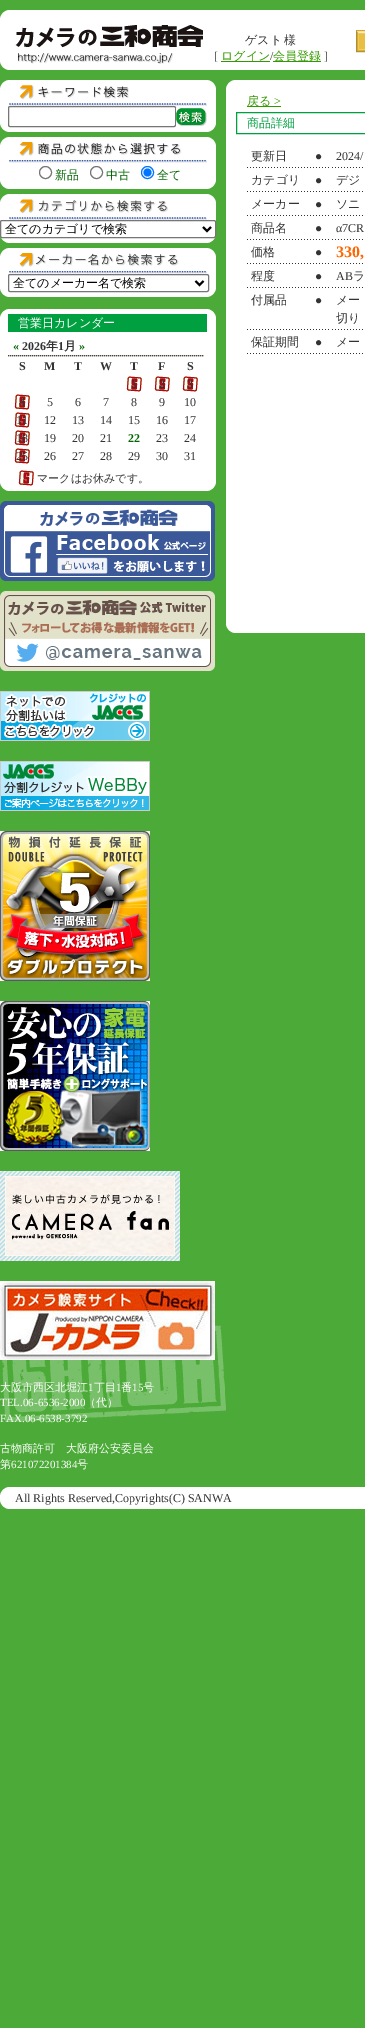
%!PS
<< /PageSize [365 2028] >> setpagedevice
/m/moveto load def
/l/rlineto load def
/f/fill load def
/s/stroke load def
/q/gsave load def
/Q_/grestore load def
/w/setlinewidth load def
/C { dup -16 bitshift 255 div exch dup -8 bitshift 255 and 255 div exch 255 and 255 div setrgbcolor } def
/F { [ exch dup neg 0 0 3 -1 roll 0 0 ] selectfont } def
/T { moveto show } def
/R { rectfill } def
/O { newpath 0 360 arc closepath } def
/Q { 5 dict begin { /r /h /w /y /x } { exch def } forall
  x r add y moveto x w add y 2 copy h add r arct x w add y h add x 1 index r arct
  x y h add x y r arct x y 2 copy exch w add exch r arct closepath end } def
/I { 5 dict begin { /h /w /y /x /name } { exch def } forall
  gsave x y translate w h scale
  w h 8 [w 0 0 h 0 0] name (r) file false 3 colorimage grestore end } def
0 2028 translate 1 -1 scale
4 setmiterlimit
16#4CAB38 C
0 0 365 2028 R
16#FFFFFF C
0 10 365 60 R
(1.rgb) 0 10 8 8 I
(2.rgb) 0 62 8 8 I
(3.rgb) 15 25 188 39 I
/WenQuanYiZenHei-Medium 12 F
16#333333 C
245 44 m -1 0 32 (ゲスト 様) widthshow
/LiberationSerif-Regular 12 F
([) 214 60 T
16#339900 C
221 61 49 1 R
/WenQuanYiZenHei-Medium 12 F
(ログイン) 221 60 T
/LiberationSerif-Regular 12 F
16#333333 C
(/) 270 60 T
16#339900 C
273 61 48 1 R
/WenQuanYiZenHei-Medium 12 F
(会員登録) 273 60 T
/LiberationSerif-Regular 12 F
16#333333 C
(]) 324 60 T
(4.rgb) 356 30 9 23 I
(5.rgb) 1 1307 225 115 I
16#FFFFFF C
0 80 216 52 R
(1.rgb) 0 80 8 8 I
(6.rgb) 208 80 8 8 I
(2.rgb) 0 124 8 8 I
(7.rgb) 208 124 8 8 I
(8.rgb) 9 85 198 21 I
16#767676 C
8.5 106.5 167 20 1.5 Q s
(9.rgb) 176 108 31 18 I
16#FFFFFF C
0 137 216 52 R
(1.rgb) 0 137 8 8 I
(6.rgb) 208 137 8 8 I
(2.rgb) 0 181 8 8 I
(7.rgb) 208 181 8 8 I
(10.rgb) 9 142 198 21 I
16#767676 C
45.5 172.5 6 O s
/WenQuanYiZenHei-Medium 12 F
16#006600 C
(新品) 55 179 T
16#767676 C
96.5 172.5 6 O s
16#006600 C
(中古) 106 179 T
16#0075FF C
147.5 172.5 6 O s
147.5 172.5 4 O f
16#006600 C
(全て) 157 179 T
16#FFFFFF C
0 194 216 49 R
(1.rgb) 0 194 8 8 I
(6.rgb) 208 194 8 8 I
(11.rgb) 0 236 8 7 I
(12.rgb) 208 236 8 7 I
(13.rgb) 9 199 198 21 I
.5 220.5 215 17 1.5 Q q f Q_
16#767676 C
s
16#000000 C
2 w
203 227 m 4 4 l 4 -4 l s
(全てのカテゴリで検索) 5 233 T
16#FFFFFF C
0 248 216 49 R
(1.rgb) 0 248 8 8 I
(6.rgb) 208 248 8 8 I
(2.rgb) 0 289 8 8 I
(7.rgb) 208 289 8 8 I
(14.rgb) 9 253 198 21 I
16#767676 C
1 w
8.5 274.5 200 17 1.5 Q s
16#000000 C
2 w
195.5 281 m 4 4 l 4 -4 l s
(全てのメーカー名で検索) 13 287 T
16#FFFFFF C
0 309 216 182 R
(1.rgb) 0 309 8 8 I
(6.rgb) 208 309 8 8 I
(2.rgb) 0 483 8 8 I
(7.rgb) 208 483 8 8 I
16#00A040 C
8 314 199 18 R
16#FFFFFF C
(営業日カレンダー) 18 327 T
(15.rgb) 8 355 196 2 I
/LiberationSerif-Bold 12 F
16#006600 C
(«) 13 350 T
16#333333 C
(2026) 22 350 T
/WenQuanYiZenHei-Bold 12 F
(年) 46 350 T
/LiberationSerif-Bold 12 F
(1) 58 350 T
/WenQuanYiZenHei-Bold 12 F
(月) 64 350 T
/LiberationSerif-Bold 12 F
16#006600 C
(») 79 350 T
16#333333 C
(S) 19 370 T
(M) 44 370 T
(T) 74 370 T
(W) 100 370 T
(T) 130 370 T
(F) 158 370 T
(S) 187 370 T
(16.rgb) 126 376 16 16 I
/LiberationSerif-Regular 12 F
(1) 131 388 T
(16.rgb) 154 376 16 16 I
(2) 159 388 T
(16.rgb) 182 376 16 16 I
(3) 187 388 T
(16.rgb) 14 394 16 16 I
(4) 19 406 T
(5) 47 406 T
(6) 75 406 T
(7) 103 406 T
(8) 131 406 T
(9) 159 406 T
(10) 184 406 T
(16.rgb) 14 412 16 16 I
(11) 16 424 T
(12) 44 424 T
(13) 72 424 T
(14) 100 424 T
(15) 128 424 T
(16) 156 424 T
(17) 184 424 T
(16.rgb) 14 430 16 16 I
(18) 16 442 T
(19) 44 442 T
(20) 72 442 T
(21) 100 442 T
/LiberationSerif-Bold 12 F
16#006600 C
(22) 128 442 T
/LiberationSerif-Regular 12 F
16#333333 C
(23) 156 442 T
(24) 184 442 T
(16.rgb) 14 448 16 16 I
(25) 16 460 T
(26) 44 460 T
(27) 72 460 T
(28) 100 460 T
(29) 128 460 T
(30) 156 460 T
(31) 184 460 T
(16.rgb) 18 470 16 16 I
/WenQuanYiZenHei-Medium 11 F
(マークはお休みです。) 37 482 T
(17.rgb) 0 501 215 80 I
(18.rgb) 0 591 215 80 I
(19.rgb) 0 691 150 50 I
(20.rgb) 0 761 150 50 I
(21.rgb) 0 831 150 150 I
(22.rgb) 0 1001 150 150 I
(23.rgb) 0 1171 180 90 I
(24.rgb) 0 1281 215 79 I
16#FFFFFF C
226 80 139 553 R
(1.rgb) 226 80 8 8 I
(2.rgb) 226 625 8 8 I
16#339900 C
247 106 34 1 R
/WenQuanYiZenHei-Medium 12 F
(戻る) 247 105 T
/LiberationSerif-Regular 12 F
(>) 274 105 T
16#00A040 C
1 w
236.5 112.5 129 21 rectstroke
/WenQuanYiZenHei-Medium 12 F
(商品詳細) 247 127 T
(25.rgb) 247 167 58 1 I
16#333333 C
(更新日) 251 160 T
(26.rgb) 307 167 22 1 I
/LiberationSerif-Regular 12 F
(●) 315 160 T
(27.rgb) 332 167 31 1 I
(2024/) 336 160 T
(25.rgb) 247 191 58 1 I
/WenQuanYiZenHei-Medium 12 F
(カテゴリ) 251 184 T
(26.rgb) 307 191 22 1 I
/LiberationSerif-Regular 12 F
(●) 315 184 T
(27.rgb) 332 191 31 1 I
/WenQuanYiZenHei-Medium 12 F
(デジ) 336 184 T
(25.rgb) 247 215 58 1 I
(メーカー) 251 208 T
(26.rgb) 307 215 22 1 I
/LiberationSerif-Regular 12 F
(●) 315 208 T
(27.rgb) 332 215 31 1 I
/WenQuanYiZenHei-Medium 12 F
(ソニ) 336 208 T
(25.rgb) 247 239 58 1 I
(商品名) 251 232 T
(26.rgb) 307 239 22 1 I
/LiberationSerif-Regular 12 F
(●) 315 232 T
(27.rgb) 332 239 31 1 I
(α7CR) 336 232 T
(25.rgb) 247 263 58 1 I
/WenQuanYiZenHei-Medium 12 F
(価格) 251 256 T
(26.rgb) 307 263 22 1 I
/LiberationSerif-Regular 12 F
(●) 315 256 T
(27.rgb) 332 263 31 1 I
/LiberationSerif-Bold 16 F
16#FF6600 C
(330,) 336 257 T
(25.rgb) 247 287 58 1 I
/WenQuanYiZenHei-Medium 12 F
16#333333 C
(程度) 251 280 T
(26.rgb) 307 287 22 1 I
/LiberationSerif-Regular 12 F
(●) 315 280 T
(27.rgb) 332 287 31 1 I
(AB) 336 280 T
/WenQuanYiZenHei-Medium 12 F
(ラ) 353 280 T
(25.rgb) 247 329 58 1 I
(付属品) 251 304 T
(26.rgb) 307 329 22 1 I
/LiberationSerif-Regular 12 F
(●) 315 304 T
(27.rgb) 332 329 31 1 I
/WenQuanYiZenHei-Medium 12 F
(メー) 336 304 T
(切り) 336 322 T
(25.rgb) 247 353 58 1 I
(保証期間) 251 346 T
(26.rgb) 307 353 22 1 I
/LiberationSerif-Regular 12 F
(●) 315 346 T
(27.rgb) 332 353 31 1 I
/WenQuanYiZenHei-Medium 12 F
(メー) 336 346 T
/WenQuanYiZenHei-Medium 11 F
16#FFFFFF C
(大阪市西区北堀江) 0 1391 T
/LiberationSerif-Regular 11 F
(1) 88 1391 T
/WenQuanYiZenHei-Medium 11 F
(丁目) 94 1391 T
/LiberationSerif-Regular 11 F
(1) 116 1391 T
/WenQuanYiZenHei-Medium 11 F
(番) 121 1391 T
/LiberationSerif-Regular 11 F
(15) 132 1391 T
/WenQuanYiZenHei-Medium 11 F
(号) 143 1391 T
/LiberationSerif-Regular 11 F
(TEL.06-6536-2000) 0 1406 T
/WenQuanYiZenHei-Medium 11 F
(（代）) 85 1406 T
/LiberationSerif-Regular 11 F
(FAX.06-6538-3792) 0 1422 T
/WenQuanYiZenHei-Medium 11 F
(古物商許可　大阪府公安委員会) 0 1452 T
(第) 0 1468 T
/LiberationSerif-Regular 11 F
(621072201384) 11 1468 T
/WenQuanYiZenHei-Medium 11 F
(号) 77 1468 T
0 1487 365 22 R
(1.rgb) 0 1487 8 8 I
(2.rgb) 0 1501 8 8 I
/LiberationSerif-Regular 12 F
16#333333 C
(All Rights Reserved,Copyrights\(C\) SANWA) 15 1502 T
showpage
